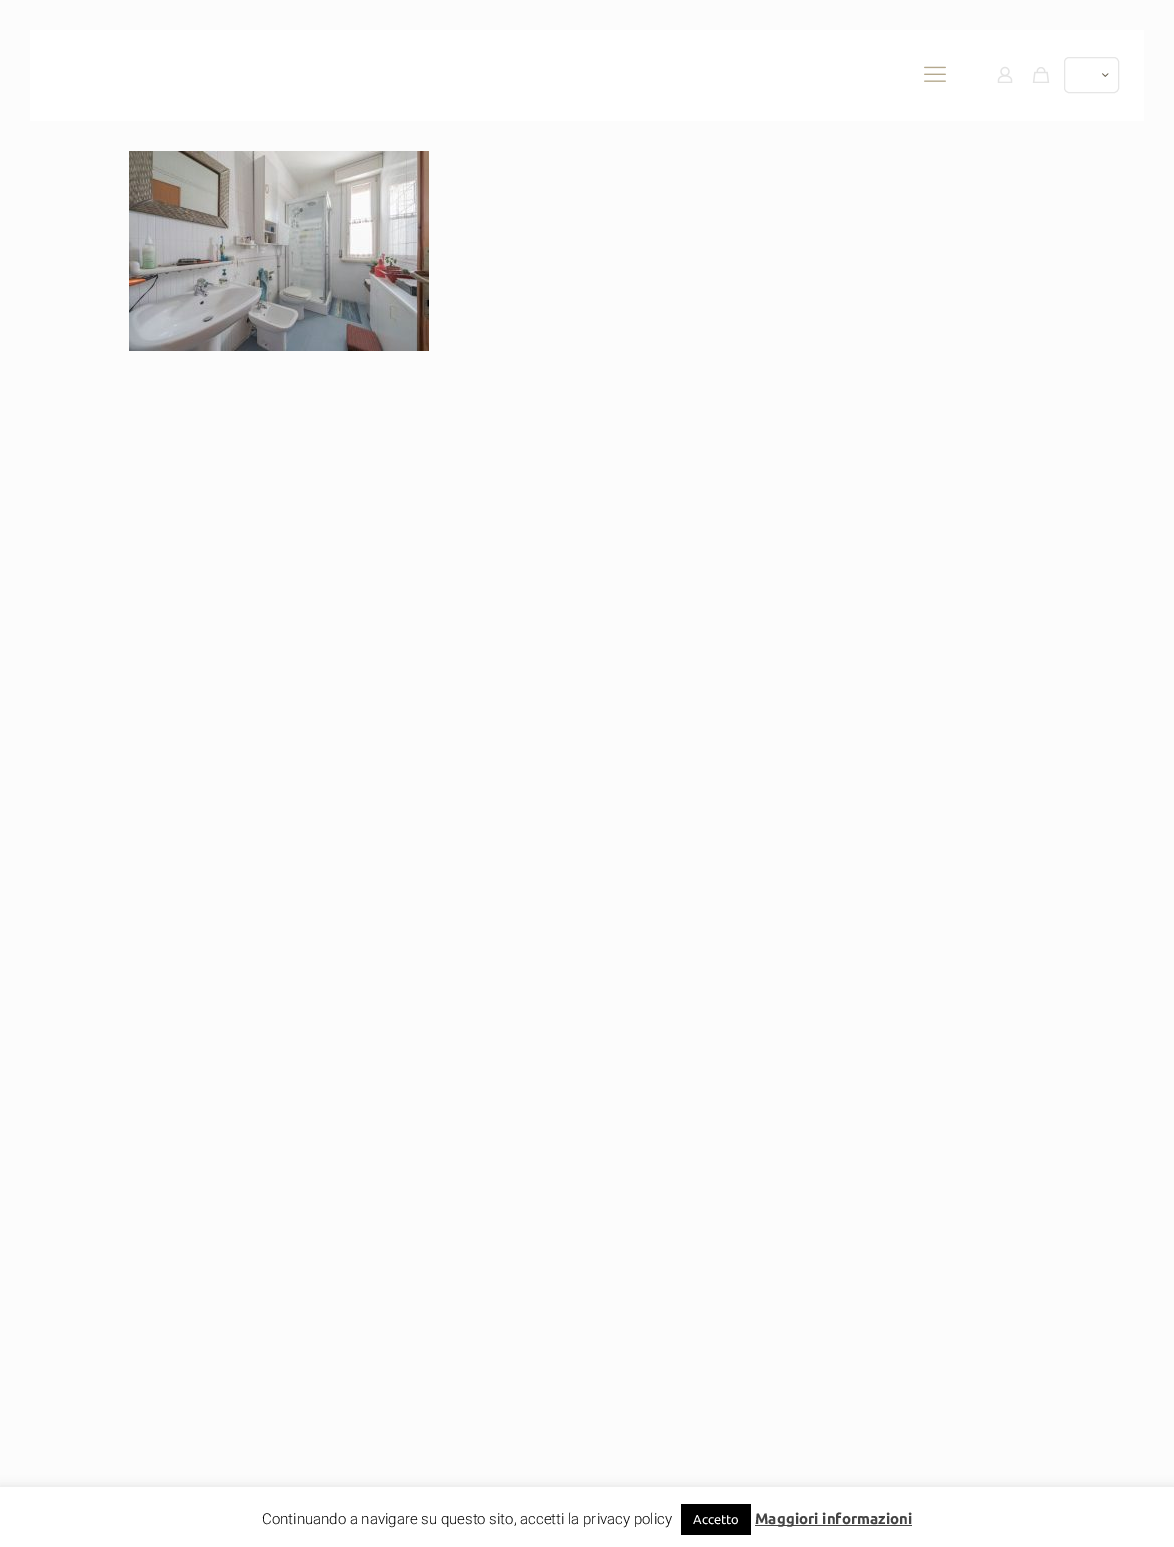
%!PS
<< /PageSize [1174 1547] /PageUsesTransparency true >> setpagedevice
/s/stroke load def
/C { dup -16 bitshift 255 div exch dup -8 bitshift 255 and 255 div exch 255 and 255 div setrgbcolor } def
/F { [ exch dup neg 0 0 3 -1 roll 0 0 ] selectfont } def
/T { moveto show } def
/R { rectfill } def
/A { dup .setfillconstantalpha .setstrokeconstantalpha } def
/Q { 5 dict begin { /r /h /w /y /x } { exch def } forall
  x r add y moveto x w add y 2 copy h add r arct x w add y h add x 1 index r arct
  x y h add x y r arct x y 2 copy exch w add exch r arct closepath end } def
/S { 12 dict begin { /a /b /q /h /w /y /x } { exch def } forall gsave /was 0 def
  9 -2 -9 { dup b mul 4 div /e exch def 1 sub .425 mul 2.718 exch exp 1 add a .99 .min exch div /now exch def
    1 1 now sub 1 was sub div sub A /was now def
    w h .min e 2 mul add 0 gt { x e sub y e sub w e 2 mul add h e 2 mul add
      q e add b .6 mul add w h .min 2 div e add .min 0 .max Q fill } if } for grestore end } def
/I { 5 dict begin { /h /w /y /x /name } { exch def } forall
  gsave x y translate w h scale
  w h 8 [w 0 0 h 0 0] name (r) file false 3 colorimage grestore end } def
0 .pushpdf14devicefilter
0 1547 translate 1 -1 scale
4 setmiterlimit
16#FCFCFC C
0 0 1174 1547 R
16#FFFFFF C
30 30 1114 91 R
(1.rgb) 924 66 22 16 I
(2.rgb) 997 66 16 17 I
(3.rgb) 1032 67 18 16 I
16#E6E6E6 C
1064.5 57.5 54 35 4.5 Q s
(4.rgb) 1102 73 7 4 I
(5.rgb) 129 151 300 200 I
16#ACABAB C
0 1486 1174 60 0 5 .3 S
16#FFFFFF C
0 1487 1174 60 R
/Roboto-Light 15 F
16#000000 C
(Continuando a navigare su questo sito, accetti la privacy policy) 262 1524 T
681 1504 70 31 R
/Ubuntu-Regular 13 F
16#FFFFFF C
(Accetto) 693 1524 T
16#444444 C
755 1525 157 1 R
/Ubuntu-Bold 15 F
(Maggiori informazioni) 755 1524 T
.poppdf14devicefilter showpage
